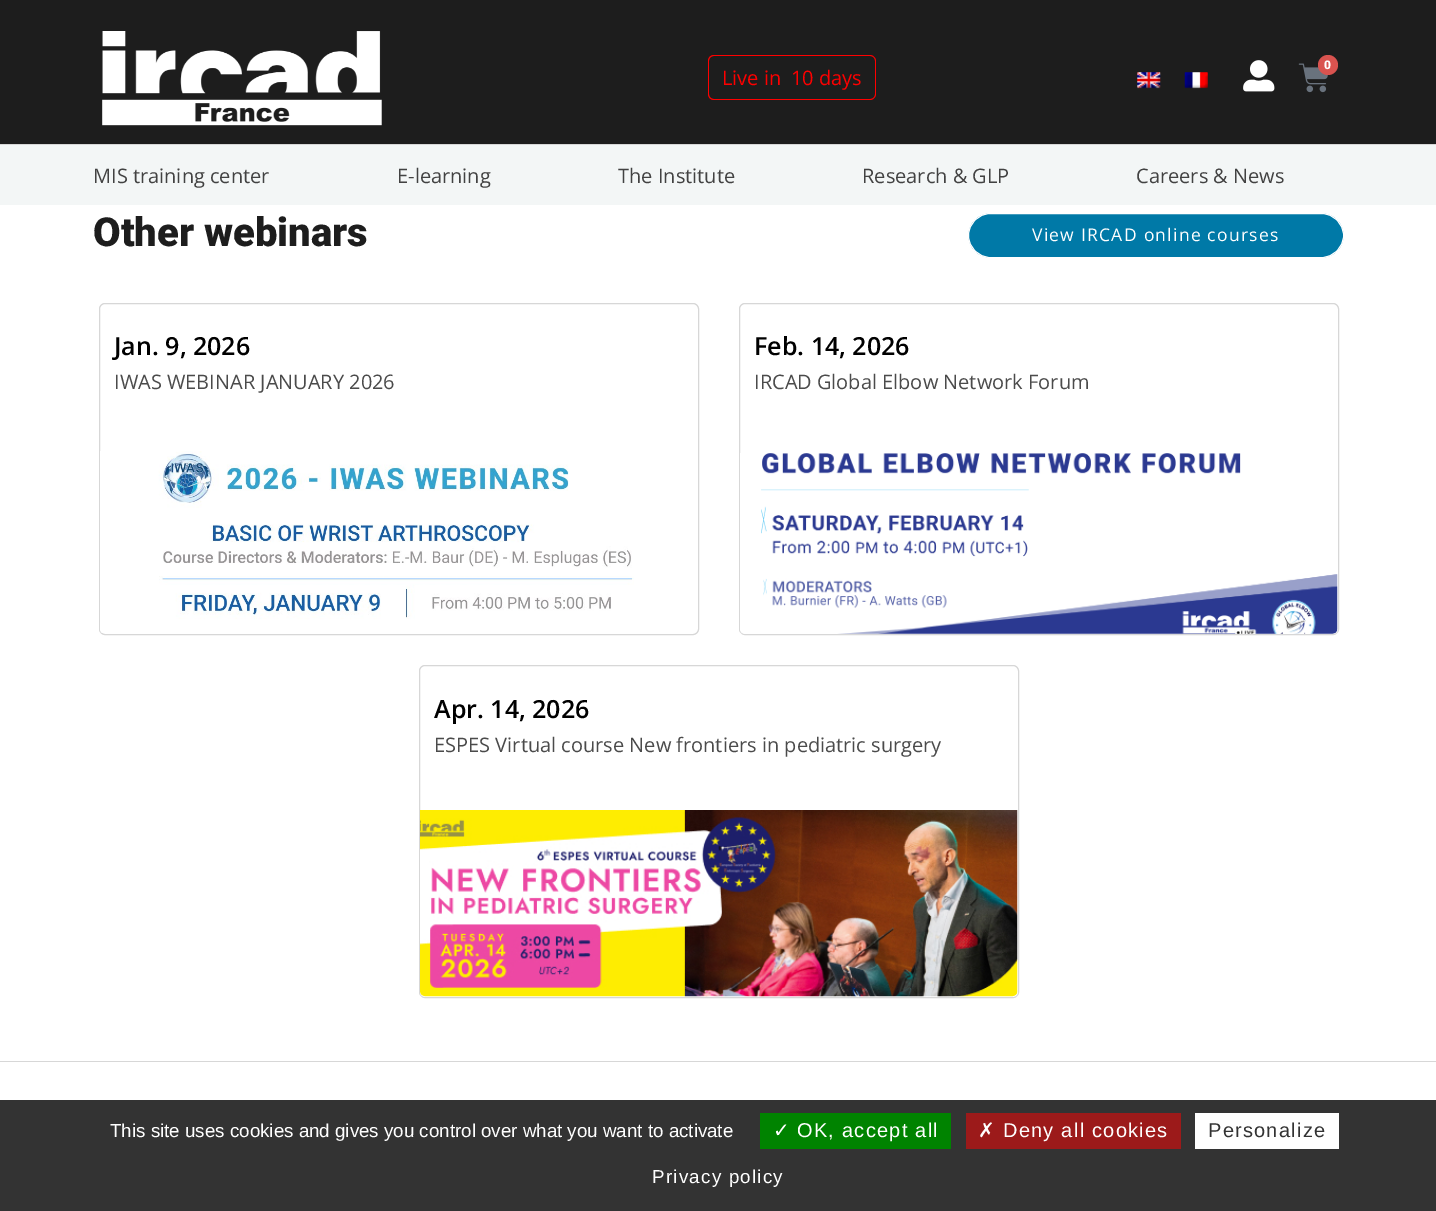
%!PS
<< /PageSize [1436 1211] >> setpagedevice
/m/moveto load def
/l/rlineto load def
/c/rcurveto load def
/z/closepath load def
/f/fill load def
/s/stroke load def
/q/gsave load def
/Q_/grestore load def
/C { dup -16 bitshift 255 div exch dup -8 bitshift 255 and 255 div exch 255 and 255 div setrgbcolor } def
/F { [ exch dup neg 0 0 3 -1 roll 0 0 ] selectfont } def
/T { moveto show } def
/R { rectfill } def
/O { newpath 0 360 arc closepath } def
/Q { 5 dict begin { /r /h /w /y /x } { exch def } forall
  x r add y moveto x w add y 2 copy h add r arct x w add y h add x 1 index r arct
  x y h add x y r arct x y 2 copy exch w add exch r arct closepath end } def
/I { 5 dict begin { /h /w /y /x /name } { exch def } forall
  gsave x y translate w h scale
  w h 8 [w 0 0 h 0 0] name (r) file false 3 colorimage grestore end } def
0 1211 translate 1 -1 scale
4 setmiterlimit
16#FFFFFF C
0 0 1436 1211 R
16#1D1D1D C
0 0 1436 144 R
16#D7D7D7 C
0 144 1436 1 R
(1.rgb) 102 31 280 95 I
(2.rgb) 1243 60 32 32 I
(3.rgb) 1298 63 30 30 I
16#D9534F C
1328 65 10 O f
/Roboto-Black 12 F
16#FFFFFF C
(0) 1324 69 T
(4.rgb) 1137 72 24 17 I
(5.rgb) 1184 72 24 17 I
16#FF0000 C
714 55 m 72 0 l 0 45 l -72 0 l -4 0 -6 -3 -6 -6 c 0 -33 l 0 -3 2 -6 6 -6 c z 714 56 m 72 0 l 0 43 l -72 0 l -3 0 -5 -2 -5 -5 c 0 -33 l 0 -3 2 -5 5 -5 c z eofill
/OpenSans-Regular 20 F
(Live in) 722 85 T
786 55 m 84 0 l 3 0 6 3 6 6 c 0 33 l 0 3 -3 6 -6 6 c -84 0 l z 786 56 m 84 0 l 3 0 5 2 5 5 c 0 33 l 0 3 -2 5 -5 5 c -84 0 l z eofill
(10 days) 791 85 T
(6.rgb) 1137 72 23 16 I
(7.rgb) 1185 72 23 16 I
16#F3F6F6 C
0 145 1436 60 R
16#424242 C
(MIS training center) 93 183 T
(E-learning) 397 183 T
(The Institute) 618 183 T
(Research & GLP) 862 183 T
(Careers & News) 1136 183 T
/Roboto-Black 40 F
16#1D1D1D C
(Other webinars) 93 246 T
16#0079A7 C
968.5 213.5 375 44 22 Q q f Q_
16#FFFFFF C
s
/OpenSans-Regular 17.5 F
1032 241 m 1.25 0 (View IRCAD online courses) ashow
16#D7D7D7 C
99.5 303.5 599 331 5.5 Q s
/OpenSans-SemiBold 25 F
16#000000 C
(Jan. 9, 2026) 114 355 T
/OpenSans-Regular 20 F
16#4B4B4B C
(IWAS WEBINAR JANUARY 2026) 114 389 T
(8.rgb) 100 451 534 182 I
16#D7D7D7 C
739.5 303.5 599 331 5.5 Q s
/OpenSans-SemiBold 25 F
16#000000 C
(Feb. 14, 2026) 754 355 T
/OpenSans-Regular 20 F
16#4B4B4B C
(IRCAD Global Elbow Network Forum) 754 389 T
(9.rgb) 740 453 598 181 I
16#D7D7D7 C
419.5 665.5 599 332 5.5 Q s
/OpenSans-SemiBold 25 F
16#000000 C
(Apr. 14, 2026) 434 718 T
/OpenSans-Regular 20 F
16#4B4B4B C
(ESPES Virtual course New frontiers in pediatric surgery) 434 752 T
(10.rgb) 420 810 598 187 I
16#D7D7D7 C
0 1061 1436 1 R
16#333333 C
0 1100 1436 111 R
/LiberationSans-Regular 18.75 F
16#FFFFFF C
(This site uses cookies and gives you control over what you want to activate) 110 1137 T
16#008300 C
760 1113 191 36 R
/DejaVuSans-Regular 20 F
16#FFFFFF C
773 1137 m 1.25 0 (✓) ashow
/LiberationSans-Regular 20 F
797 1137 m 1.25 0 (OK, accept all) ashow
16#9C1A1A C
966 1113 215 36 R
/DejaVuSans-Regular 20 F
16#FFFFFF C
978 1137 m 1.25 0 (✗) ashow
/LiberationSans-Regular 20 F
1003 1137 m 1.25 0 (Deny all cookies) ashow
1195 1113 144 36 R
16#333333 C
1208 1137 m 1.25 0 (Personalize) ashow
/LiberationSans-Regular 18.75 F
16#FFFFFF C
652 1183 m 1.25 0 (Privacy policy) ashow
showpage
